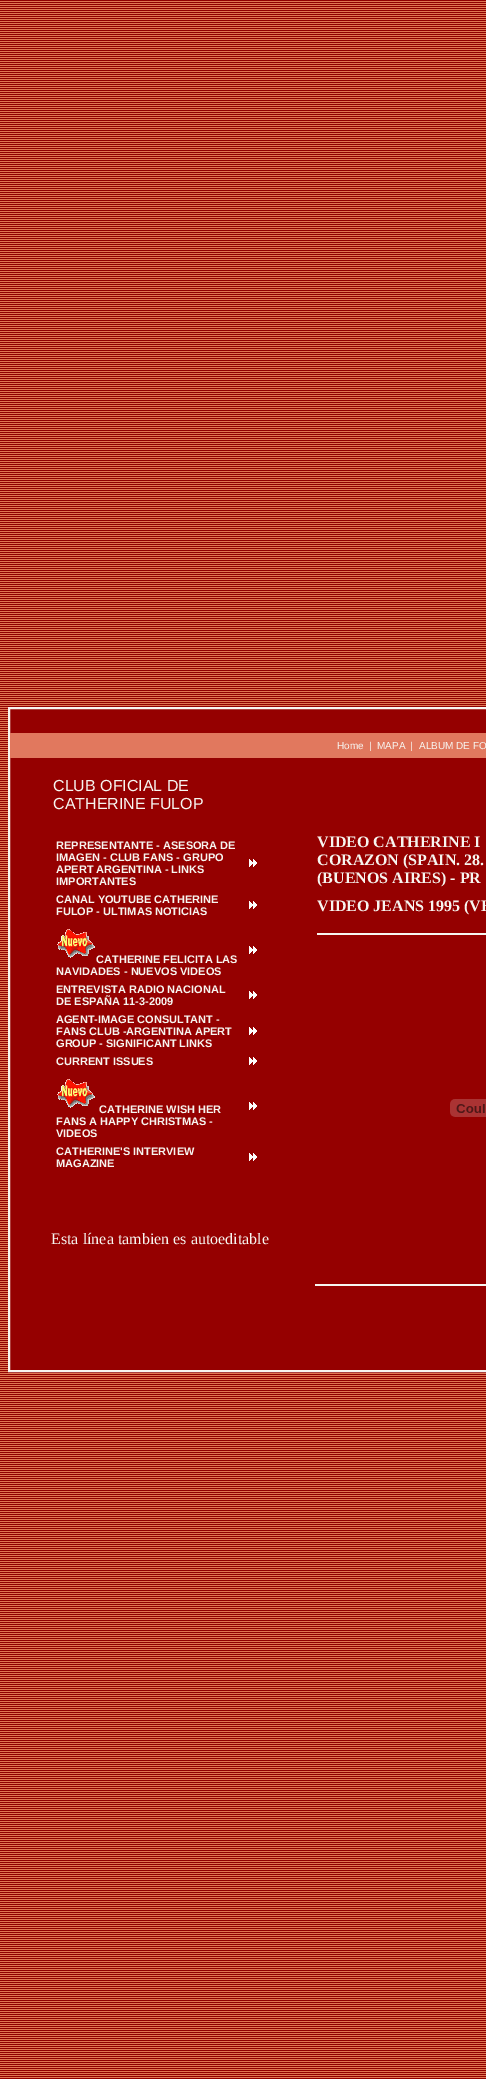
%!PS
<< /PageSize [486 2079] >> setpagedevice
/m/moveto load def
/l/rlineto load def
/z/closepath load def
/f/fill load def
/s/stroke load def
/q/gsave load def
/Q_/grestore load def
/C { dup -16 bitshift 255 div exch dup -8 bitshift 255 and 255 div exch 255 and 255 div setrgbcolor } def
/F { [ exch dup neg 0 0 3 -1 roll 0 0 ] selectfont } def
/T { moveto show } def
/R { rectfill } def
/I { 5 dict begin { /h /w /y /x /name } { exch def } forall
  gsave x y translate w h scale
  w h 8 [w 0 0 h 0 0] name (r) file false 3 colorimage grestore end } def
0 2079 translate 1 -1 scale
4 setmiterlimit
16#FFFFFF C
0 0 486 2079 R
(1.rgb) 0 0 486 2079 I
16#F7F5F0 C
8.5 707.5 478 664 rectstroke
16#950000 C
9.5 708.5 m 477 0 l 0 662 l -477 0 l z q f Q_
16#F7F5F0 C
s
16#E1785E C
10 733 476 25 R
/LiberationSans-Regular 10 F
16#F7F5F0 C
(Home) 337 749 T
(|) 369 749 T
(MAPA) 377 749 T
(|) 410 749 T
(ALBUM DE FO) 419 749 T
/LiberationSans-Regular 16 F
(CLUB OFICIAL DE) 53 791 T
(CATHERINE FULOP) 53 809 T
/LiberationSans-Bold 11 F
(REPRESENTANTE - ASESORA DE) 56 849 T
(IMAGEN - CLUB FANS - GRUPO) 56 861 T
(APERT ARGENTINA - LINKS) 56 873 T
(IMPORTANTES) 56 885 T
(2.rgb) 249 859 8 8 I
(CANAL YOUTUBE CATHERINE) 56 903 T
(FULOP - ULTIMAS NOTICIAS) 56 915 T
(2.rgb) 249 901 8 8 I
(2.rgb) 249 946 8 8 I
(3.rgb) 57 929 38 29 I
(CATHERINE FELICITA LAS) 96 963 T
(NAVIDADES - NUEVOS VIDEOS) 56 975 T
(ENTREVISTA RADIO NACIONAL) 56 993 T
(DE ESPAÑA 11-3-2009) 56 1005 T
(2.rgb) 249 991 8 8 I
(AGENT-IMAGE CONSULTANT -) 56 1023 T
(FANS CLUB -ARGENTINA APERT) 56 1035 T
(GROUP - SIGNIFICANT LINKS) 56 1047 T
(2.rgb) 249 1027 8 8 I
(CURRENT ISSUES) 56 1065 T
(2.rgb) 249 1057 8 8 I
(3.rgb) 57 1079 38 29 I
(CATHERINE WISH HER) 99 1113 T
(FANS A HAPPY CHRISTMAS -) 56 1125 T
(VIDEOS) 56 1137 T
(2.rgb) 249 1102 8 8 I
(CATHERINE'S INTERVIEW) 56 1155 T
(MAGAZINE) 56 1167 T
(2.rgb) 249 1153 8 8 I
/LiberationSerif-Regular 16 F
(Esta línea tambien es autoeditable) 51 1244 T
/LiberationSerif-Bold 16 F
(VIDEO CATHERINE I) 317 847 T
(CORAZON \(SPAIN. 28.) 317 865 T
(\(BUENOS AIRES\) - PR) 317 883 T
(VIDEO JEANS 1995 \(VE) 317 911 T
317 933 169 2 R
(4.rgb) 450 1099 36 18 I
315 1284 171 2 R
showpage
